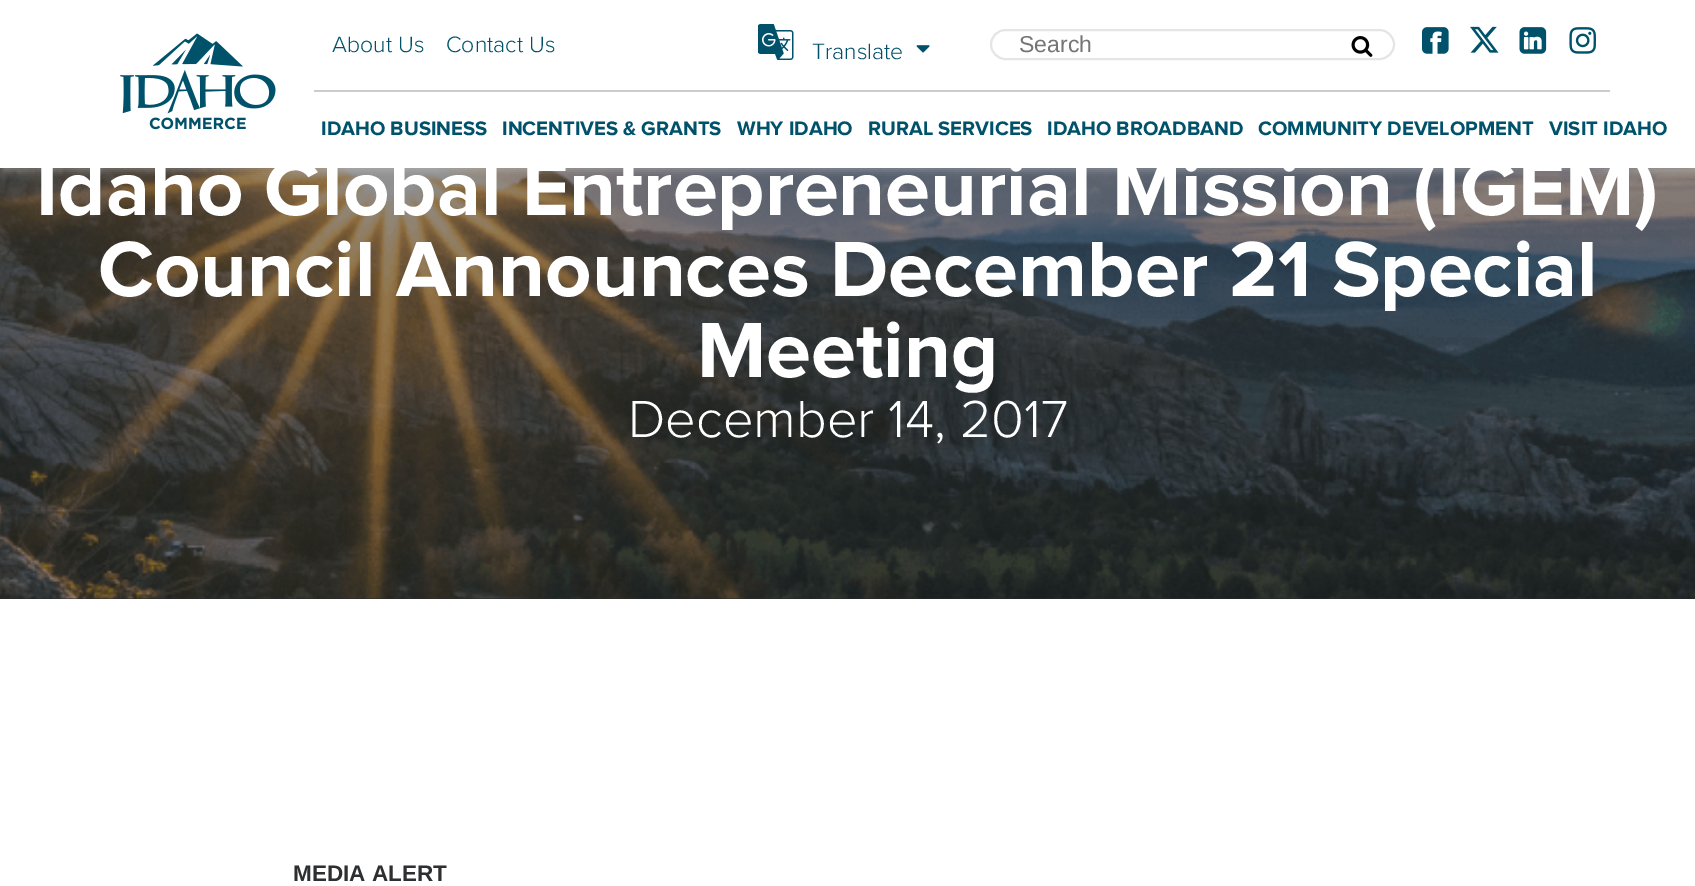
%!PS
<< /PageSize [1695 886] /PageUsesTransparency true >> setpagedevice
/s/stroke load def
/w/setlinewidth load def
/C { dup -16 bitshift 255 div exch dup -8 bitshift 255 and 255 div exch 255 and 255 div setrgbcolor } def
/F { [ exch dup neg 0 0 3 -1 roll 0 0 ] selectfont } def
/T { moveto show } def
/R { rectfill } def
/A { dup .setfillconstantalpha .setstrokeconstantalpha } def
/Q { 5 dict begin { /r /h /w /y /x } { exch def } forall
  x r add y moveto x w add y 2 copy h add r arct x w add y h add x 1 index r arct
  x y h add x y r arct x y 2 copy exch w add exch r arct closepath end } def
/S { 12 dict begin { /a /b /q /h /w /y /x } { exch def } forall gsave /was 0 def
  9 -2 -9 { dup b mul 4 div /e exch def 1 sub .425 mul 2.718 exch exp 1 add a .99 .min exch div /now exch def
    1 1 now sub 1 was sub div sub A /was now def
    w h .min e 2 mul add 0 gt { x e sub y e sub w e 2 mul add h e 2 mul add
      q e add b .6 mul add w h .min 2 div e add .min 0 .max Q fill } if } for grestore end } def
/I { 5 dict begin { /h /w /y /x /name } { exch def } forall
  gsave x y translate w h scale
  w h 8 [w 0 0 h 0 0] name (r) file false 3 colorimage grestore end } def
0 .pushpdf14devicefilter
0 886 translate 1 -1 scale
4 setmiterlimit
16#FFFFFF C
0 0 1695 886 R
16#29292B C
0 598 1695 1 R
(9.rgb) 0 168 1695 431 I
16#D4D4D4 C
3 3 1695 168 0 4 .38 S
16#FFFFFF C
0 0 1695 168 R
(1.rgb) 120 33 156 97 I
/ProximaNova-Light 23 F
16#00526A C
(About Us) 332 52 T
(Contact Us) 446 52 T
(2.rgb) 758 24 36 36 I
(Translate) 812 59 T
(3.rgb) 916 45 14 8 I
16#E5E5E5 C
2 w
991 30 403 29 14.5 Q s
/LiberationSans-Regular 23 F
16#757575 C
(Search) 1019 52 T
(4.rgb) 1351 36 22 21 I
(5.rgb) 1422 27 27 27 I
(6.rgb) 1470 26 29 27 I
(7.rgb) 1519 27 28 27 I
(8.rgb) 1569 27 27 27 I
16#CCCCCC C
314 90 1296 2 R
/ProximaNova-Bold 20.25 F
16#00526A C
(IDAHO BUSINESS) 321 135 T
(INCENTIVES & GRANTS) 502 135 T
(WHY IDAHO) 737 135 T
(RURAL SERVICES) 868 135 T
(IDAHO BROADBAND) 1047 135 T
(COMMUNITY DEVELOPMENT) 1258 135 T
(VISIT IDAHO) 1549 135 T
/ProximaNova-Bold 81 F
16#FFFFFF C
(Idaho Global Entrepreneurial Mission \(IGEM\)) 36 215 T
(Council Announces December 21 Special) 98 296 T
(Meeting) 697 377 T
/ProximaNova-Light 54 F
(December 14, 2017) 628 437 T
/LiberationSans-Bold 22.5 F
16#2E2F31 C
(MEDIA ALERT) 293 881 T
.poppdf14devicefilter showpage
